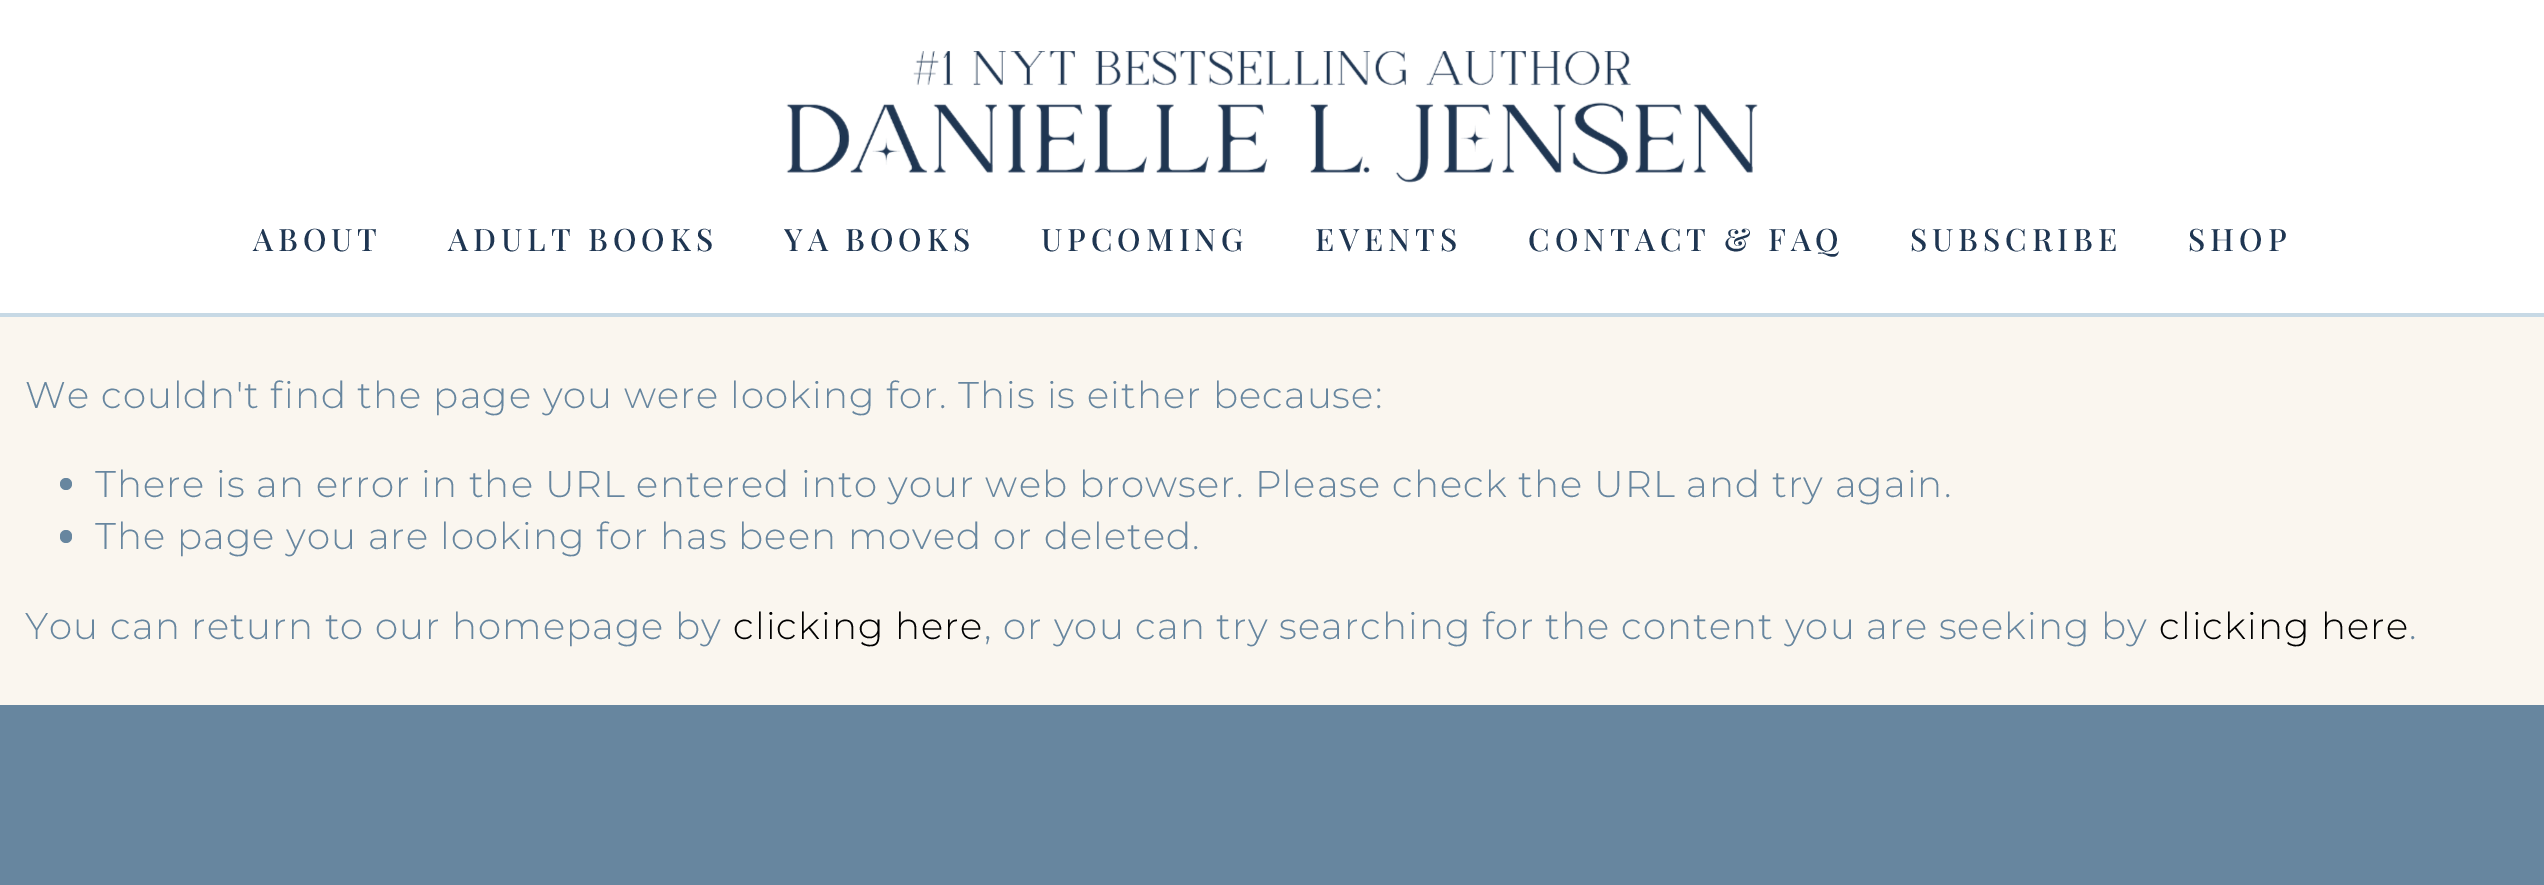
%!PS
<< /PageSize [2544 885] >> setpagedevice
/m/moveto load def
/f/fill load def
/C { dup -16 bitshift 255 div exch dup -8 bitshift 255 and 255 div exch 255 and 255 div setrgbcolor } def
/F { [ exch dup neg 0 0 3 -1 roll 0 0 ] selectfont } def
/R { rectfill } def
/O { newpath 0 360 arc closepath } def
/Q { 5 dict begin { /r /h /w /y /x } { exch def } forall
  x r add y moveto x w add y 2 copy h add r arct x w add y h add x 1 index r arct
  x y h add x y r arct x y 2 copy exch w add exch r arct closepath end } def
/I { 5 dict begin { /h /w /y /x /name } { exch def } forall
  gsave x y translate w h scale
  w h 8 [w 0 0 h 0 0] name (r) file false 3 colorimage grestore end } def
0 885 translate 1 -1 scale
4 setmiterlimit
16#FAF6EF C
0 0 2544 885 R
16#FFFFFF C
0 0 2544 313 R
(1.rgb) 786 51 972 132 I
/PlayfairDisplay-Medium 31 F
16#1F3652 C
253 251 m 5 0 (ABOUT) ashow
448 251 m 5 0 (ADULT BOOKS) ashow
784 251 m 5 0 (YA BOOKS) ashow
1041 251 m 5 0 (UPCOMING) ashow
1315 251 m 5 0 (EVENTS) ashow
1528 251 m 5 0 (CONTACT & FAQ) ashow
1910 251 m 5 0 (SUBSCRIBE) ashow
2188 251 m 5 0 (SHOP) ashow
16#C7D9E5 C
0 313 2544 4 R
/Montserrat-Light 37.15 F
16#67869F C
25 408 m 1.1 0 (We couldn't find the page you were looking for. This is either because:) ashow
66 484 6 O f
95 497 m 1.1 0 (There is an error in the URL entered into your web browser. Please check the URL and try again.) ashow
60 530 12 13 6 Q f
95 549 m 1.1 0 (The page you are looking for has been moved or deleted.) ashow
25 639 m 1.1 0 (You can return to our homepage by) ashow
16#000000 C
733 639 m 1.1 0 (clicking here) ashow
16#67869F C
984 639 m 1.1 0 (, or you can try searching for the) ashow
1621 639 m 1.1 0 (content you are seeking by) ashow
16#000000 C
2159 639 m 1.1 0 (clicking here) ashow
16#67869F C
2409 639 m 1.1 0 (.) ashow
0 705 2544 180 R
showpage
